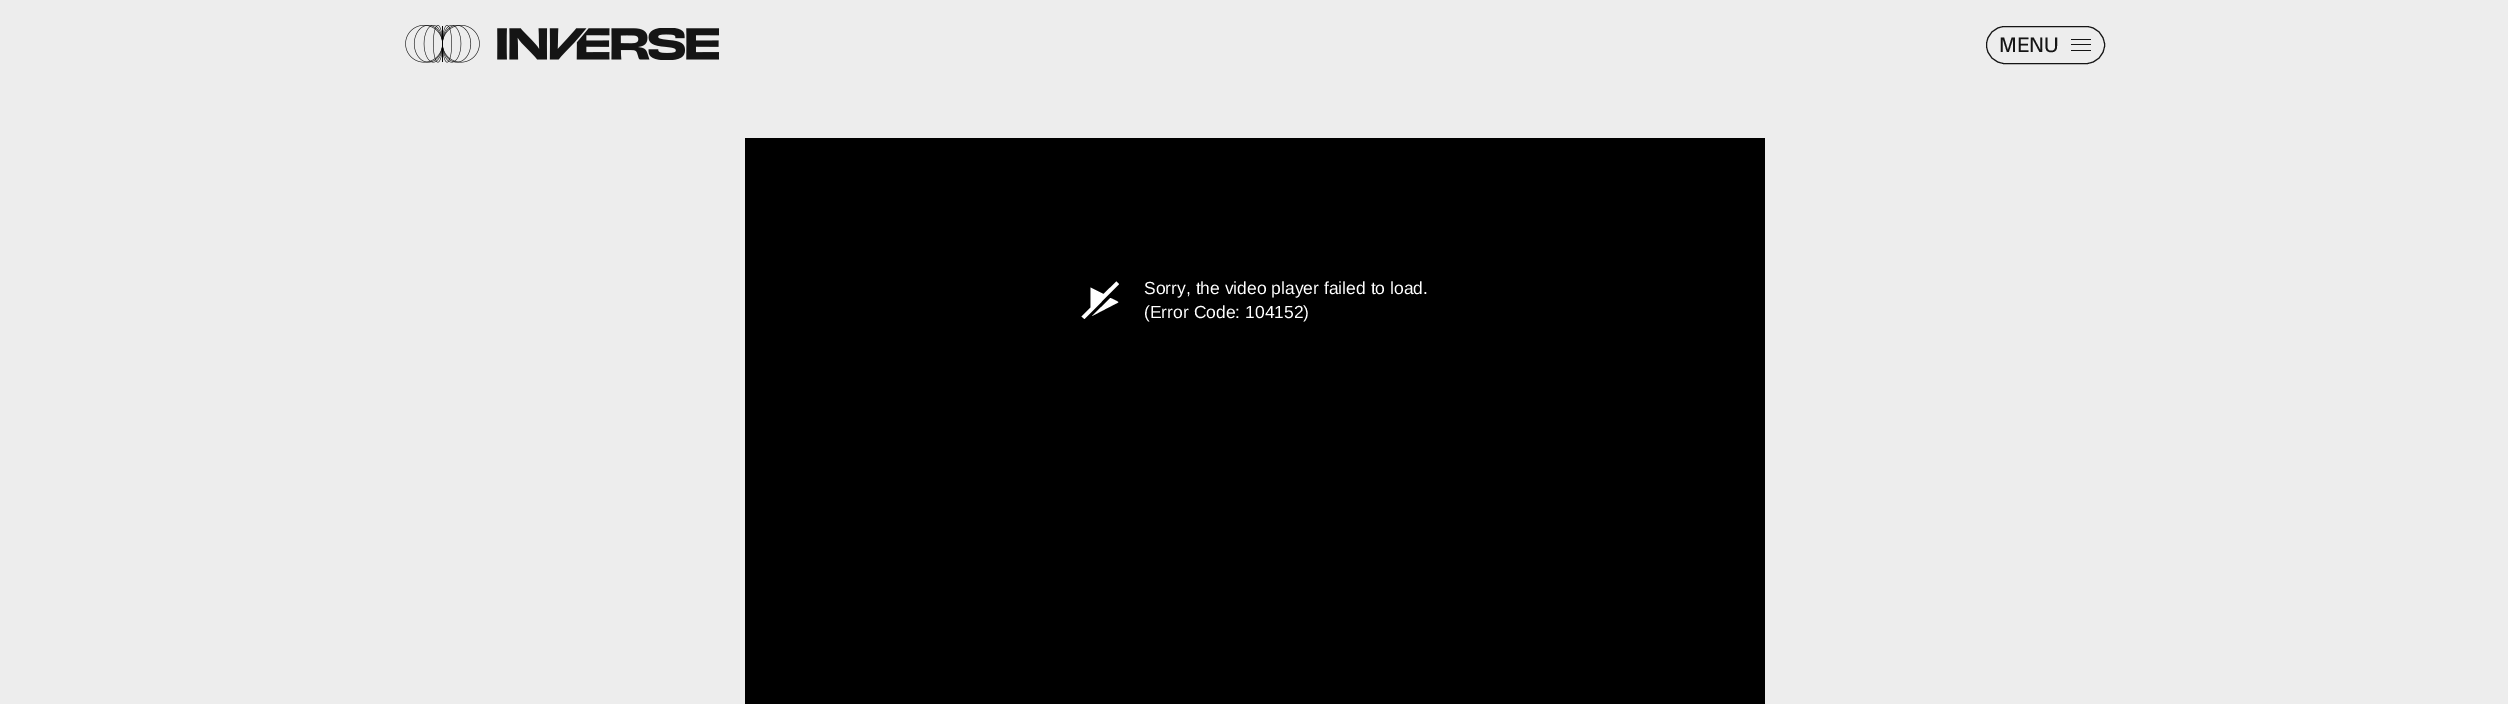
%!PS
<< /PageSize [2508 704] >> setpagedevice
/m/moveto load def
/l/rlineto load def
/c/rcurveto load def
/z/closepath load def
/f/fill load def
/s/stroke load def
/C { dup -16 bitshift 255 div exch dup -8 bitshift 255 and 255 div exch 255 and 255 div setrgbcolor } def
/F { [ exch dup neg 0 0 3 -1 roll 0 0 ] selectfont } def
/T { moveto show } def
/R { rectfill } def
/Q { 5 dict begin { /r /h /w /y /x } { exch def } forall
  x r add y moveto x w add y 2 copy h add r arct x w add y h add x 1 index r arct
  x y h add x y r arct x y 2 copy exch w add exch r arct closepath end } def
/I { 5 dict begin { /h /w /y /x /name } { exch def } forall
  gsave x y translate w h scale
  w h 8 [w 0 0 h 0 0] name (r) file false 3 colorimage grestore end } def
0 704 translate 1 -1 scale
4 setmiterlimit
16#EDEDED C
0 0 2508 704 R
(1.rgb) 405 25 75 38 I
(2.rgb) 497 28 223 32 I
16#151515 C
1986.5 26.5 118 37 18.5 Q s
/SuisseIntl-Regular 20 F
(MENU) 1999 52 T
2071 39 20 1 R
2071 50 20 1 R
2071 44 20 1 R
16#000000 C
745 138 1020 566 R
16#FFFFFF C
1118 302.5 m -26 13.5 l 18.5 -18 l 7 3.5 8.5 4 7.5 4.5 c z 1116.5 281.5 m -13 12.5 l -13 -6.5 l 0 20 l -9 9 l 3 2.5 l 34.5 -35 l z f
/LiberationSans-Regular 17.5 F
(Sorry, the video player failed to load.) 1144 294 T
(\(Error Code: 104152\)) 1144 318 T
showpage
